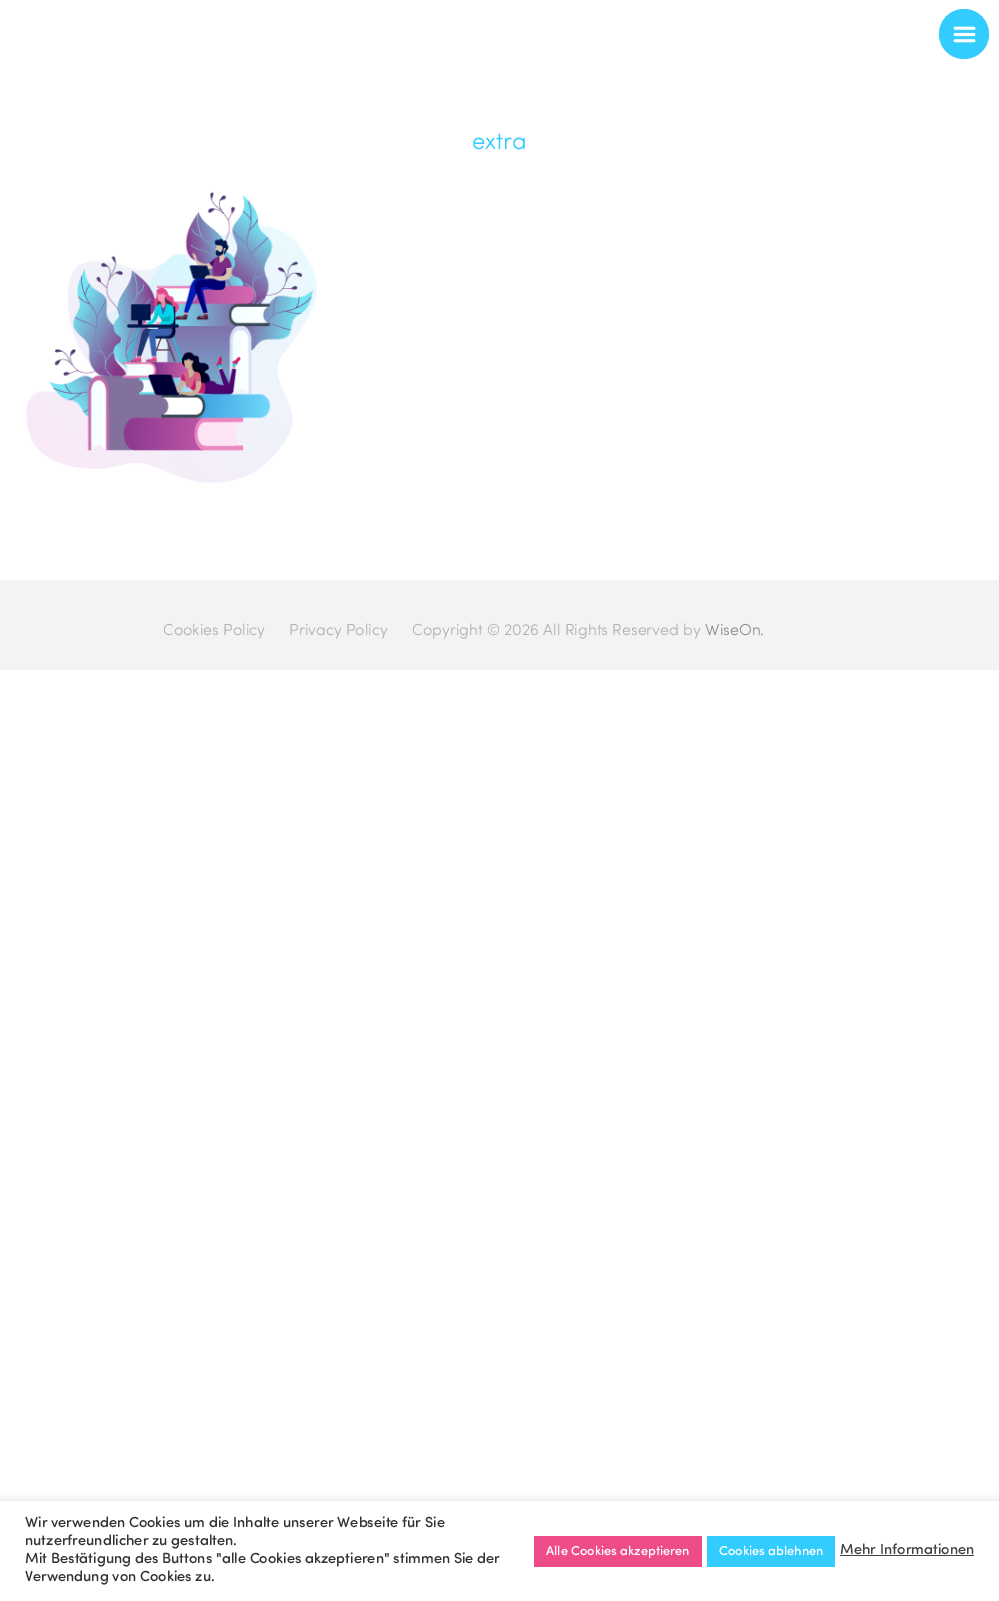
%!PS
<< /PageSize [999 1601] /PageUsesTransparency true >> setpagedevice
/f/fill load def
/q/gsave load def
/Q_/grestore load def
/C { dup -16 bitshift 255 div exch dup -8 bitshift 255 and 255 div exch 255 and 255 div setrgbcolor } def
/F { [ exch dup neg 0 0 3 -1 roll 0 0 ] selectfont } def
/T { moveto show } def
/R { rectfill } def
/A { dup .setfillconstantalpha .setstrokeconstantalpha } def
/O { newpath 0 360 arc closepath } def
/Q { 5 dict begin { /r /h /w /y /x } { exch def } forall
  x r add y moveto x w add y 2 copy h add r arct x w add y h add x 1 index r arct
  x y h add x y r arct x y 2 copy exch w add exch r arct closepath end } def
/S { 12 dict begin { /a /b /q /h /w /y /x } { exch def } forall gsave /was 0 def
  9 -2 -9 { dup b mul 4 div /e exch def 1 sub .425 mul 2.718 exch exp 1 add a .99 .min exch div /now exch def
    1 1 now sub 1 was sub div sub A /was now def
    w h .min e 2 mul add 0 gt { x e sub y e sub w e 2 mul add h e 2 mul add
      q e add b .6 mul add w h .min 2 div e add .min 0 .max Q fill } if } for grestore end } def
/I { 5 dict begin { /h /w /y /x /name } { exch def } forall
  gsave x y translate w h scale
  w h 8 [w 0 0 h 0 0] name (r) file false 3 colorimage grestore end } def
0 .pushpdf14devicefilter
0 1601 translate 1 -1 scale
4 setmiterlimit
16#FFFFFF C
0 0 999 1601 R
16#33CCFF C
964 34 25 O f
(1.rgb) 953 26 23 17 I
/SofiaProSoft-Light 24 F
(extra) 472 149 T
(2.rgb) 26 191 291 292 I
16#F3F3F3 C
0 580 999 90 R
/SofiaProSoft-Light 16 F
16#B2B2B2 C
(Cookies Policy) 163 635 T
(Privacy Policy) 289 635 T
(Copyright © 2026 All Rights Reserved by) 412 635 T
16#8C8C8C C
(WiseOn.) 705 635 T
q
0 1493 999 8 rectclip
16#ACABAB C
0 1500 999 100 0 5 .3 S
Q_
/SofiaProSoft-Medium 14.7 F
16#333333 C
(Wir verwenden Cookies um die Inhalte unserer Webseite für Sie) 25 1527 T
(nutzerfreundlicher zu gestalten.) 25 1545 T
(Mit Bestätigung des Buttons "alle Cookies akzeptieren" stimmen Sie der) 25 1563 T
(Verwendung von Cookies zu.) 25 1581 T
16#EE4C88 C
534 1536 168 31 R
/SofiaProSoft-Medium 13 F
16#FFFFFF C
(Alle Cookies akzeptieren) 546 1555 T
16#33CCFF C
707 1536 128 31 R
16#FFFFFF C
(Cookies ablehnen) 719 1555 T
/SofiaProSoft-Medium 14.7 F
16#444444 C
(Mehr Informationen) 840 1554 T
840 1555 134 1 R
.poppdf14devicefilter showpage
